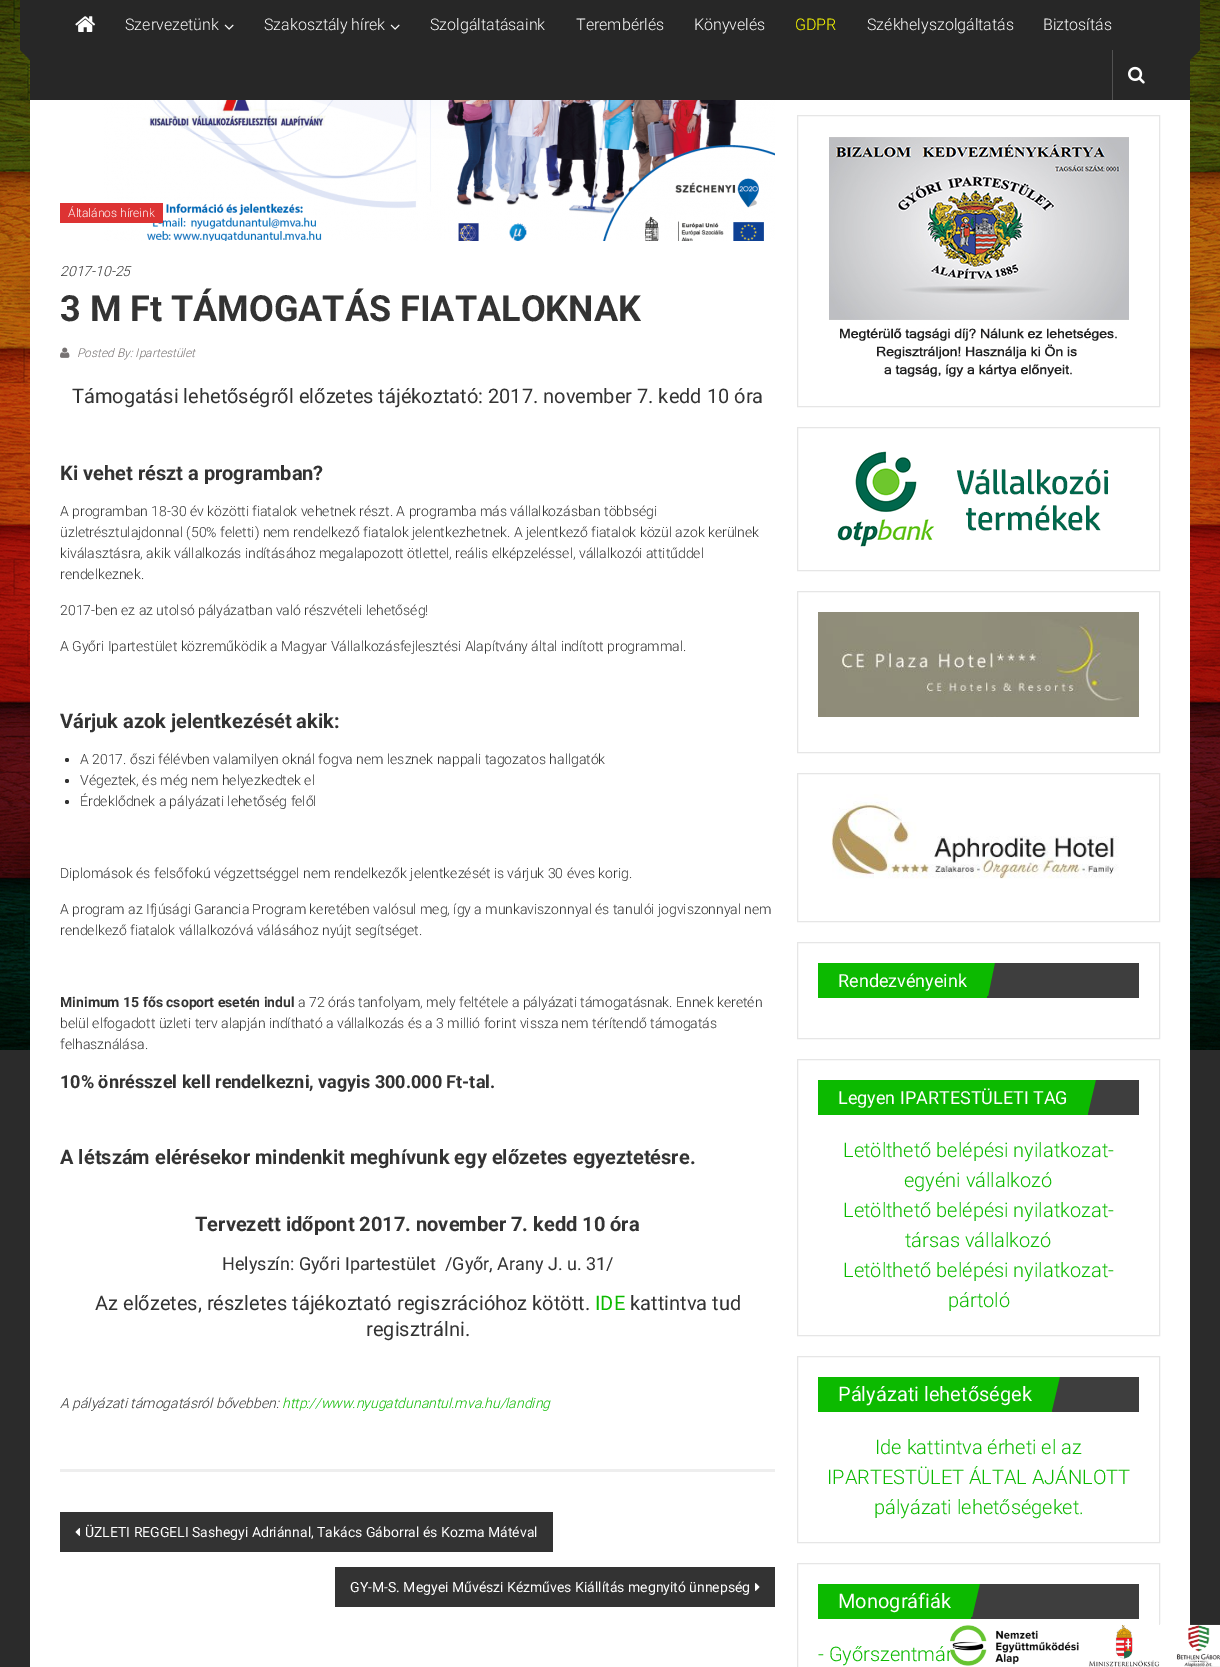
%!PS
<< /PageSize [1220 1667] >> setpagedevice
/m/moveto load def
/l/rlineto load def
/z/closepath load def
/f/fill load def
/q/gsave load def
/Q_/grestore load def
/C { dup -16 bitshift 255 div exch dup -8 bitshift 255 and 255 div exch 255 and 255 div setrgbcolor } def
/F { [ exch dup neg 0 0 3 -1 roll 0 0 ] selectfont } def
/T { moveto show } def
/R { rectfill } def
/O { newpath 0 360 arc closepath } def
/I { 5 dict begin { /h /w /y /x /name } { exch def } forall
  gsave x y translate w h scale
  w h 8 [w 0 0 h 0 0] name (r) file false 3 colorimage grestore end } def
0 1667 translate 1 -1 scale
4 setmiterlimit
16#2B2B2B C
0 0 1220 1667 R
(1.rgb) 0 0 1220 1050 I
16#FFFFFF C
30 100 1160 1567 R
16#272727 C
30 0 1160 100 R
20 0 10 50 R
(2.rgb) 75 16 21 16 I
/Roboto-Light 16 F
16#FFFFFF C
(Szervezetünk) 125 30 T
(3.rgb) 224 24 10 6 I
(Szakosztály hírek) 264 30 T
(3.rgb) 390 24 10 6 I
(Szolgáltatásaink) 430 30 T
(Terembérlés) 576 30 T
(Könyvelés) 694 30 T
16#FFFF00 C
(GDPR) 795 30 T
16#FFFFFF C
(Székhelyszolgáltatás) 867 30 T
(Biztosítás) 1043 30 T
16#525252 C
1112 50 1 50 R
(4.rgb) 1128 66 17 18 I
16#272727 C
30 40 m 0 20 l -10 -10 l z f
1190 60 m 0 -20 l 10 10 l z f
1190 0 10 50 R
16#EEEEEE C
60 1469 715 3 R
(5.rgb) 104 100 671 141 I
16#DD3333 C
60 203 103 20 R
/Roboto-Light 12 F
16#FFFFFF C
(Általános híreink) 68 217 T
/Roboto-LightItalic 14 F
16#333333 C
(2017-10-25) 60 276 T
/Roboto-Bold 36 F
(3 M Ft TÁMOGATÁS FIATALOKNAK) 60 321 T
(6.rgb) 60 347 10 11 I
/Roboto-LightItalic 12 F
16#767272 C
(Posted By: Ipartestület) 77 357 T
/Roboto-Regular 20 F
16#333333 C
(Támogatási lehetőségről előzetes tájékoztató: 2017. november 7. kedd 10 óra) 72 403 T
/Roboto-Bold 20 F
(Ki vehet részt a programban?) 60 480 T
/Roboto-Light 14 F
(A programban 18-30 év közötti fiatalok vehetnek részt. A programba más vállalkozásban többségi) 60 516 T
(üzletrésztulajdonnal \(50% feletti\) nem rendelkező fiatalok jelentkezhetnek. A jelentkező fiatalok közül azok kerülnek) 60 537 T
(kiválasztásra, akik vállalkozás indításához megalapozott ötlettel, reális elképzeléssel, vállalkozói attitűddel) 60 558 T
(rendelkeznek.) 60 579 T
(2017-ben ez az utolsó pályázatban való részvételi lehetőség!) 60 615 T
(A Győri Ipartestület közreműködik a Magyar Vállalkozásfejlesztési Alapítvány által indított programmal.) 60 651 T
/Roboto-Bold 20 F
(Várjuk azok jelentkezését akik:) 60 728 T
67 760 2 O f
/Roboto-Light 14 F
(A 2017. őszi félévben valamilyen oknál fogva nem lesznek nappali tagozatos hallgatók) 80 764 T
67 781 2 O f
(Végeztek, és még nem helyezkedtek el) 80 785 T
67 802 2 O f
(Érdeklődnek a pályázati lehetőség felől) 80 806 T
(Diplomások és felsőfokú végzettséggel nem rendelkezők jelentkezését is várjuk 30 éves korig.) 60 878 T
(A program az Ifjúsági Garancia Program keretében valósul meg, így a munkaviszonnyal és tanulói jogviszonnyal nem) 60 914 T
(rendelkező fiatalok vállalkozóvá válásához nyújt segítséget.) 60 935 T
/Roboto-Bold 14 F
(Minimum 15 fős csoport esetén indul) 60 1007 T
/Roboto-Light 14 F
(a 72 órás tanfolyam, mely feltétele a pályázati támogatásnak. Ennek keretén) 298 1007 T
(belül elfogadott üzleti terv alapján indítható a vállalkozás és a 3 millió forint vissza nem térítendő támogatás) 60 1028 T
(felhasználása.) 60 1049 T
/Roboto-Bold 18 F
(10% önrésszel kell rendelkezni, vagyis 300.000 Ft-tal.) 60 1088 T
/Roboto-Bold 20 F
(A létszám elérésekor mindenkit meghívunk egy előzetes egyeztetésre.) 60 1164 T
(Tervezett időpont 2017. november 7. kedd 10 óra) 195 1231 T
/Roboto-Regular 18 F
(Helyszín: Győri Ipartestület  /Győr, Arany J. u. 31/) 222 1270 T
/Roboto-Regular 20 F
(Az előzetes, részletes tájékoztató regiszrációhoz kötött.) 95 1310 T
16#0CBA00 C
(IDE) 595 1310 T
16#333333 C
(kattintva tud) 630 1310 T
(regisztrálni.) 366 1336 T
/Roboto-LightItalic 14 F
(A pályázati támogatásról bővebben:) 60 1408 T
16#0CBA00 C
(http://www.nyugatdunantul.mva.hu/landing) 282 1408 T
16#333333 C
60 1512 493 40 R
(7.rgb) 75 1528 5 8 I
/Roboto-Regular 14 F
16#FFFFFF C
(ÜZLETI REGGELI Sashegyi Adriánnal, Takács Gáborral és Kozma Mátéval) 85 1537 T
16#333333 C
335 1567 440 40 R
16#FFFFFF C
(GY-M-S. Megyei Művészi Kézműves Kiállítás megnyitó ünnepség) 350 1592 T
(8.rgb) 755 1583 5 8 I
16#E6E6E6 C
797.5 115.5 362 291 rectstroke
(9.rgb) 829 137 300 240 I
797.5 427.5 362 143 rectstroke
(10.rgb) 837 451 272 96 I
797.5 591.5 362 161 rectstroke
(11.rgb) 818 612 321 105 I
797.5 773.5 362 148 rectstroke
(12.rgb) 831 794 288 85 I
797.5 942.5 362 96 rectstroke
16#3E3E3E C
987 963 152 35 R
16#0CBA00 C
818 963 169 35 R
q
818 963 321 35 rectclip
995 962 m -7 34 l -35 -7 l 8 -35 l z f
Q_
/Roboto-Regular 18 F
16#FFFFFF C
(Rendezvényeink) 838 987 T
16#E6E6E6 C
797.5 1059.5 362 276 rectstroke
16#3E3E3E C
1088 1080 51 35 R
16#0CBA00 C
818 1080 270 35 R
q
818 1080 321 35 rectclip
1096 1079 m -8 34 l -34 -7 l 8 -35 l z f
Q_
16#FFFFFF C
(Legyen IPARTESTÜLETI TAG) 838 1104 T
/Roboto-Light 20 F
16#0CBA00 C
(Letölthető belépési nyilatkozat-) 843 1157 T
(egyéni vállalkozó) 904 1187 T
(Letölthető belépési nyilatkozat-) 843 1217 T
(társas vállalkozó) 905 1247 T
(Letölthető belépési nyilatkozat-) 843 1277 T
(pártoló) 948 1307 T
16#E6E6E6 C
797.5 1356.5 362 186 rectstroke
16#3E3E3E C
1052 1377 87 35 R
16#0CBA00 C
818 1377 234 35 R
q
818 1377 321 35 rectclip
1060 1376 m -8 34 l -34 -7 l 8 -35 l z f
Q_
/Roboto-Regular 20 F
16#FFFFFF C
(Pályázati lehetőségek) 838 1401 T
/Roboto-Light 20 F
16#0CBA00 C
(Ide kattintva érheti el az) 875 1454 T
(IPARTESTÜLET ÁLTAL AJÁNLOTT) 827 1484 T
(pályázati lehetőségeket.) 874 1514 T
16#E6E6E6 C
797.5 1563.5 362 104 rectstroke
16#3E3E3E C
971 1584 168 35 R
16#0CBA00 C
818 1584 153 35 R
q
818 1584 321 35 rectclip
980 1583 m -8 34 l -34 -7 l 7 -35 l z f
Q_
/Roboto-Regular 20 F
16#FFFFFF C
(Monográfiák) 838 1608 T
/Roboto-Light 20 F
16#0CBA00 C
(- Győrszentmár) 818 1661 T
(13.rgb) 950 1624 270 43 I
showpage
